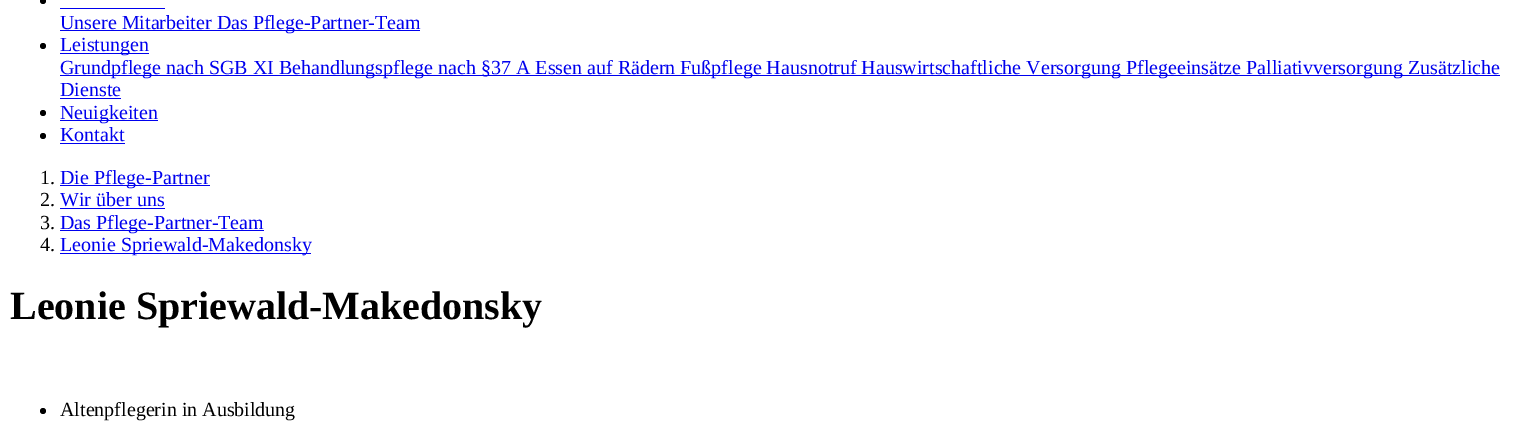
%!PS
<< /PageSize [1539 446] >> setpagedevice
/f/fill load def
/C { dup -16 bitshift 255 div exch dup -8 bitshift 255 and 255 div exch 255 and 255 div setrgbcolor } def
/F { [ exch dup neg 0 0 3 -1 roll 0 0 ] selectfont } def
/T { moveto show } def
/R { rectfill } def
/O { newpath 0 360 arc closepath } def
0 446 translate 1 -1 scale
4 setmiterlimit
16#FFFFFF C
0 0 1539 446 R
16#000000 C
43 1 3 O f
16#0000EE C
60 8 105 1 R
60 30 360 1 R
/LiberationSerif-Regular 20 F
(Unsere Mitarbeiter Das Pflege-Partner-Team) 60 29 T
16#000000 C
43 46 3 O f
16#0000EE C
60 53 89 1 R
(Leistungen) 60 51 T
60 75 1440 1 R
(Grundpflege nach SGB XI Behandlungspflege nach §37 A Essen auf Rädern Fußpflege Hausnotruf Hauswirtschaftliche Versorgung Pflegeeinsätze Palliativversorgung Zusätzliche) 60 74 T
(Dienste) 60 96 T
60 98 61 1 R
16#000000 C
43 113 3 O f
16#0000EE C
60 120 98 1 R
(Neuigkeiten) 60 119 T
16#000000 C
43 136 3 O f
16#0000EE C
(Kontakt) 60 141 T
60 143 65 1 R
16#000000 C
(1.) 40 184 T
16#0000EE C
60 185 150 1 R
(Die Pflege-Partner) 60 184 T
16#000000 C
(2.) 40 206 T
16#0000EE C
(Wir über uns) 60 206 T
60 208 105 1 R
16#000000 C
(3.) 40 229 T
16#0000EE C
60 230 204 1 R
(Das Pflege-Partner-Team) 60 229 T
16#000000 C
(4.) 40 251 T
16#0000EE C
60 253 251 1 R
(Leonie Spriewald-Makedonsky) 60 251 T
/LiberationSerif-Bold 40 F
16#000000 C
(Leonie Spriewald-Makedonsky) 10 319 T
43 411 3 O f
/LiberationSerif-Regular 20 F
(Altenpflegerin in Ausbildung) 60 416 T
showpage
